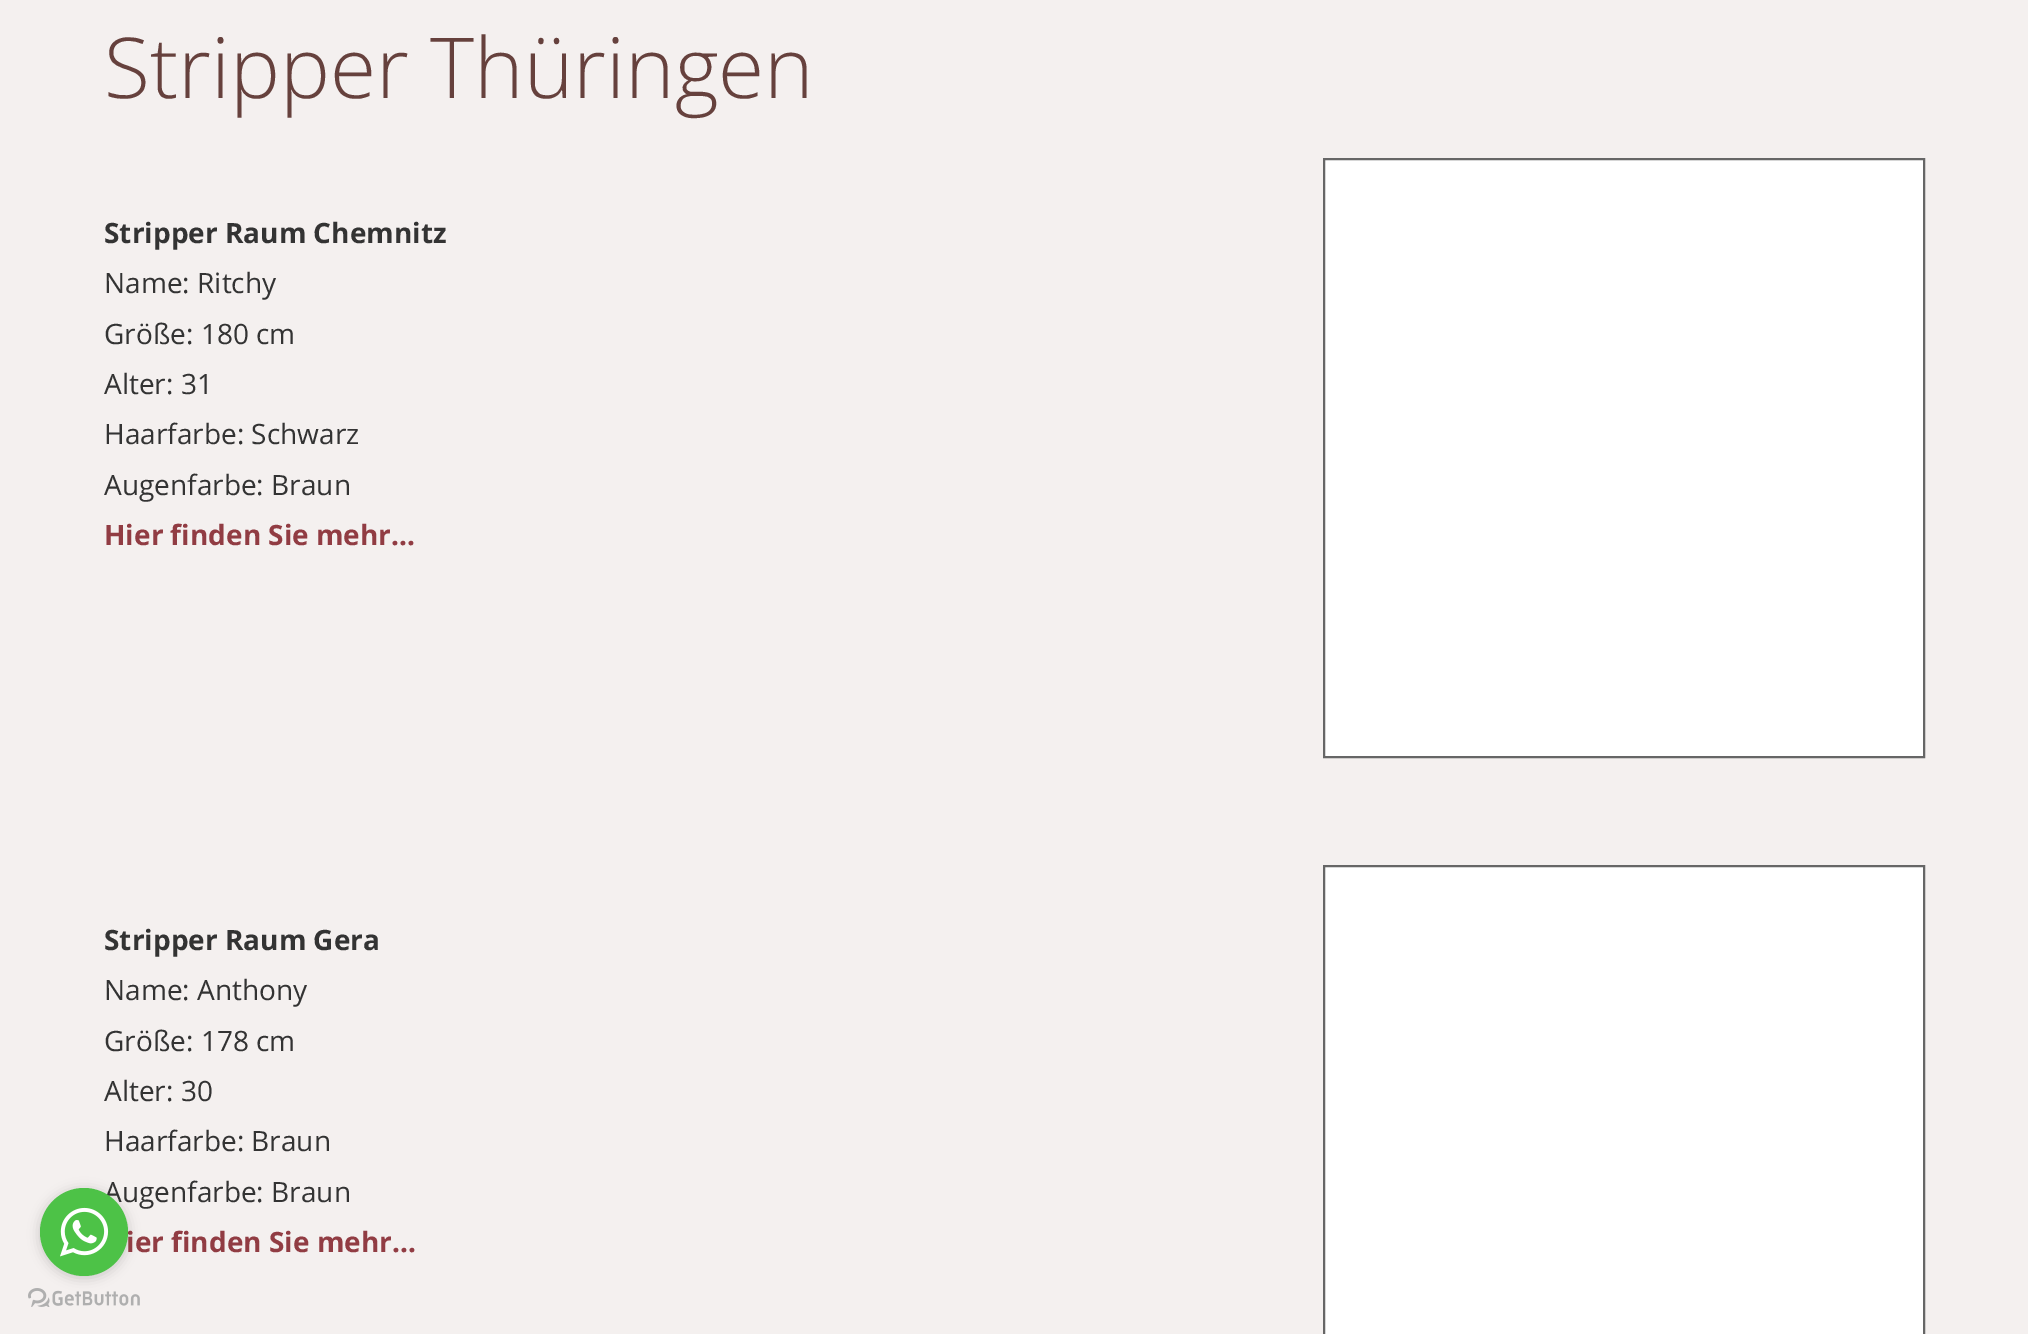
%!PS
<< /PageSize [2028 1334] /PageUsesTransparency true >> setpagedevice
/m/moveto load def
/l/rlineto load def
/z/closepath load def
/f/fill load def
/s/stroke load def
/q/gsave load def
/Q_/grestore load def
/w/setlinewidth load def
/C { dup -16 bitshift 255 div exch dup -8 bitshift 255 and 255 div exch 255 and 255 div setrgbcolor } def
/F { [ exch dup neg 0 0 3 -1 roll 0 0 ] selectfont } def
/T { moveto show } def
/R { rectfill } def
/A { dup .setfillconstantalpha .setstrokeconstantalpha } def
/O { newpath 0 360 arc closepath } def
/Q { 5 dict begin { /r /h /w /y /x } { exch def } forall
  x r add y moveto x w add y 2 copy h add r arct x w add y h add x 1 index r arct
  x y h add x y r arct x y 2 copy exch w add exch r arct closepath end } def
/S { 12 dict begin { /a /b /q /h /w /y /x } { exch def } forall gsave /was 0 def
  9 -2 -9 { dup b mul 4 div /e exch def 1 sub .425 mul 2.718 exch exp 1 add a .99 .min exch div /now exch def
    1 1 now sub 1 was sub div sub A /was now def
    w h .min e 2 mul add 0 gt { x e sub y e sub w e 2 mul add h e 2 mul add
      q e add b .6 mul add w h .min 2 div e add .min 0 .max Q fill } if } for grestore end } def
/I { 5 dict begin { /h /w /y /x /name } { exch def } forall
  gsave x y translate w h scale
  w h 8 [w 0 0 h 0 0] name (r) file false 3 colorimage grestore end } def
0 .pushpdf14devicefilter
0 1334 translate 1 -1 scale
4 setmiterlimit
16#F4F0EF C
0 0 2028 1334 R
(2.rgb) 28 1288 112 19 I
16#888888 C
40 1190 88 88 44 6 .4 S
/OpenSans-Regular 28 F
16#333333 C
(Augenfarbe: Braun) 104 1202 T
/OpenSans-Bold 28 F
16#913C43 C
(ier finden Sie mehr...) 126 1252 T
16#4DC247 C
84 1232 44 O f
(1.rgb) 60 1207 49 50 I
/OpenSans-Light 84 F
16#66413D C
(Stripper Thüringen) 104 98 T
/OpenSans-Bold 28 F
16#333333 C
(Stripper Raum Chemnitz) 104 243 T
/OpenSans-Regular 28 F
(Name: Ritchy) 104 293 T
(Größe: 180 cm) 104 344 T
(Alter: 31) 104 394 T
(Haarfarbe: Schwarz) 104 444 T
(Augenfarbe: Braun) 104 495 T
/OpenSans-Bold 28 F
16#913C43 C
(Hier finden Sie mehr...) 104 545 T
16#FFFFFF C
1324 159 m 600 0 l 0 598 l -600 0 l z q f Q_
16#666666 C
2 w
s
16#333333 C
(Stripper Raum Gera) 104 950 T
/OpenSans-Regular 28 F
(Name: Anthony) 104 1000 T
(Größe: 178 cm) 104 1051 T
(Alter: 30) 104 1101 T
(Haarfarbe: Braun) 104 1151 T
16#FFFFFF C
1324 866 m 600 0 l 0 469 l -600 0 l z q f Q_
16#666666 C
s
.poppdf14devicefilter showpage
